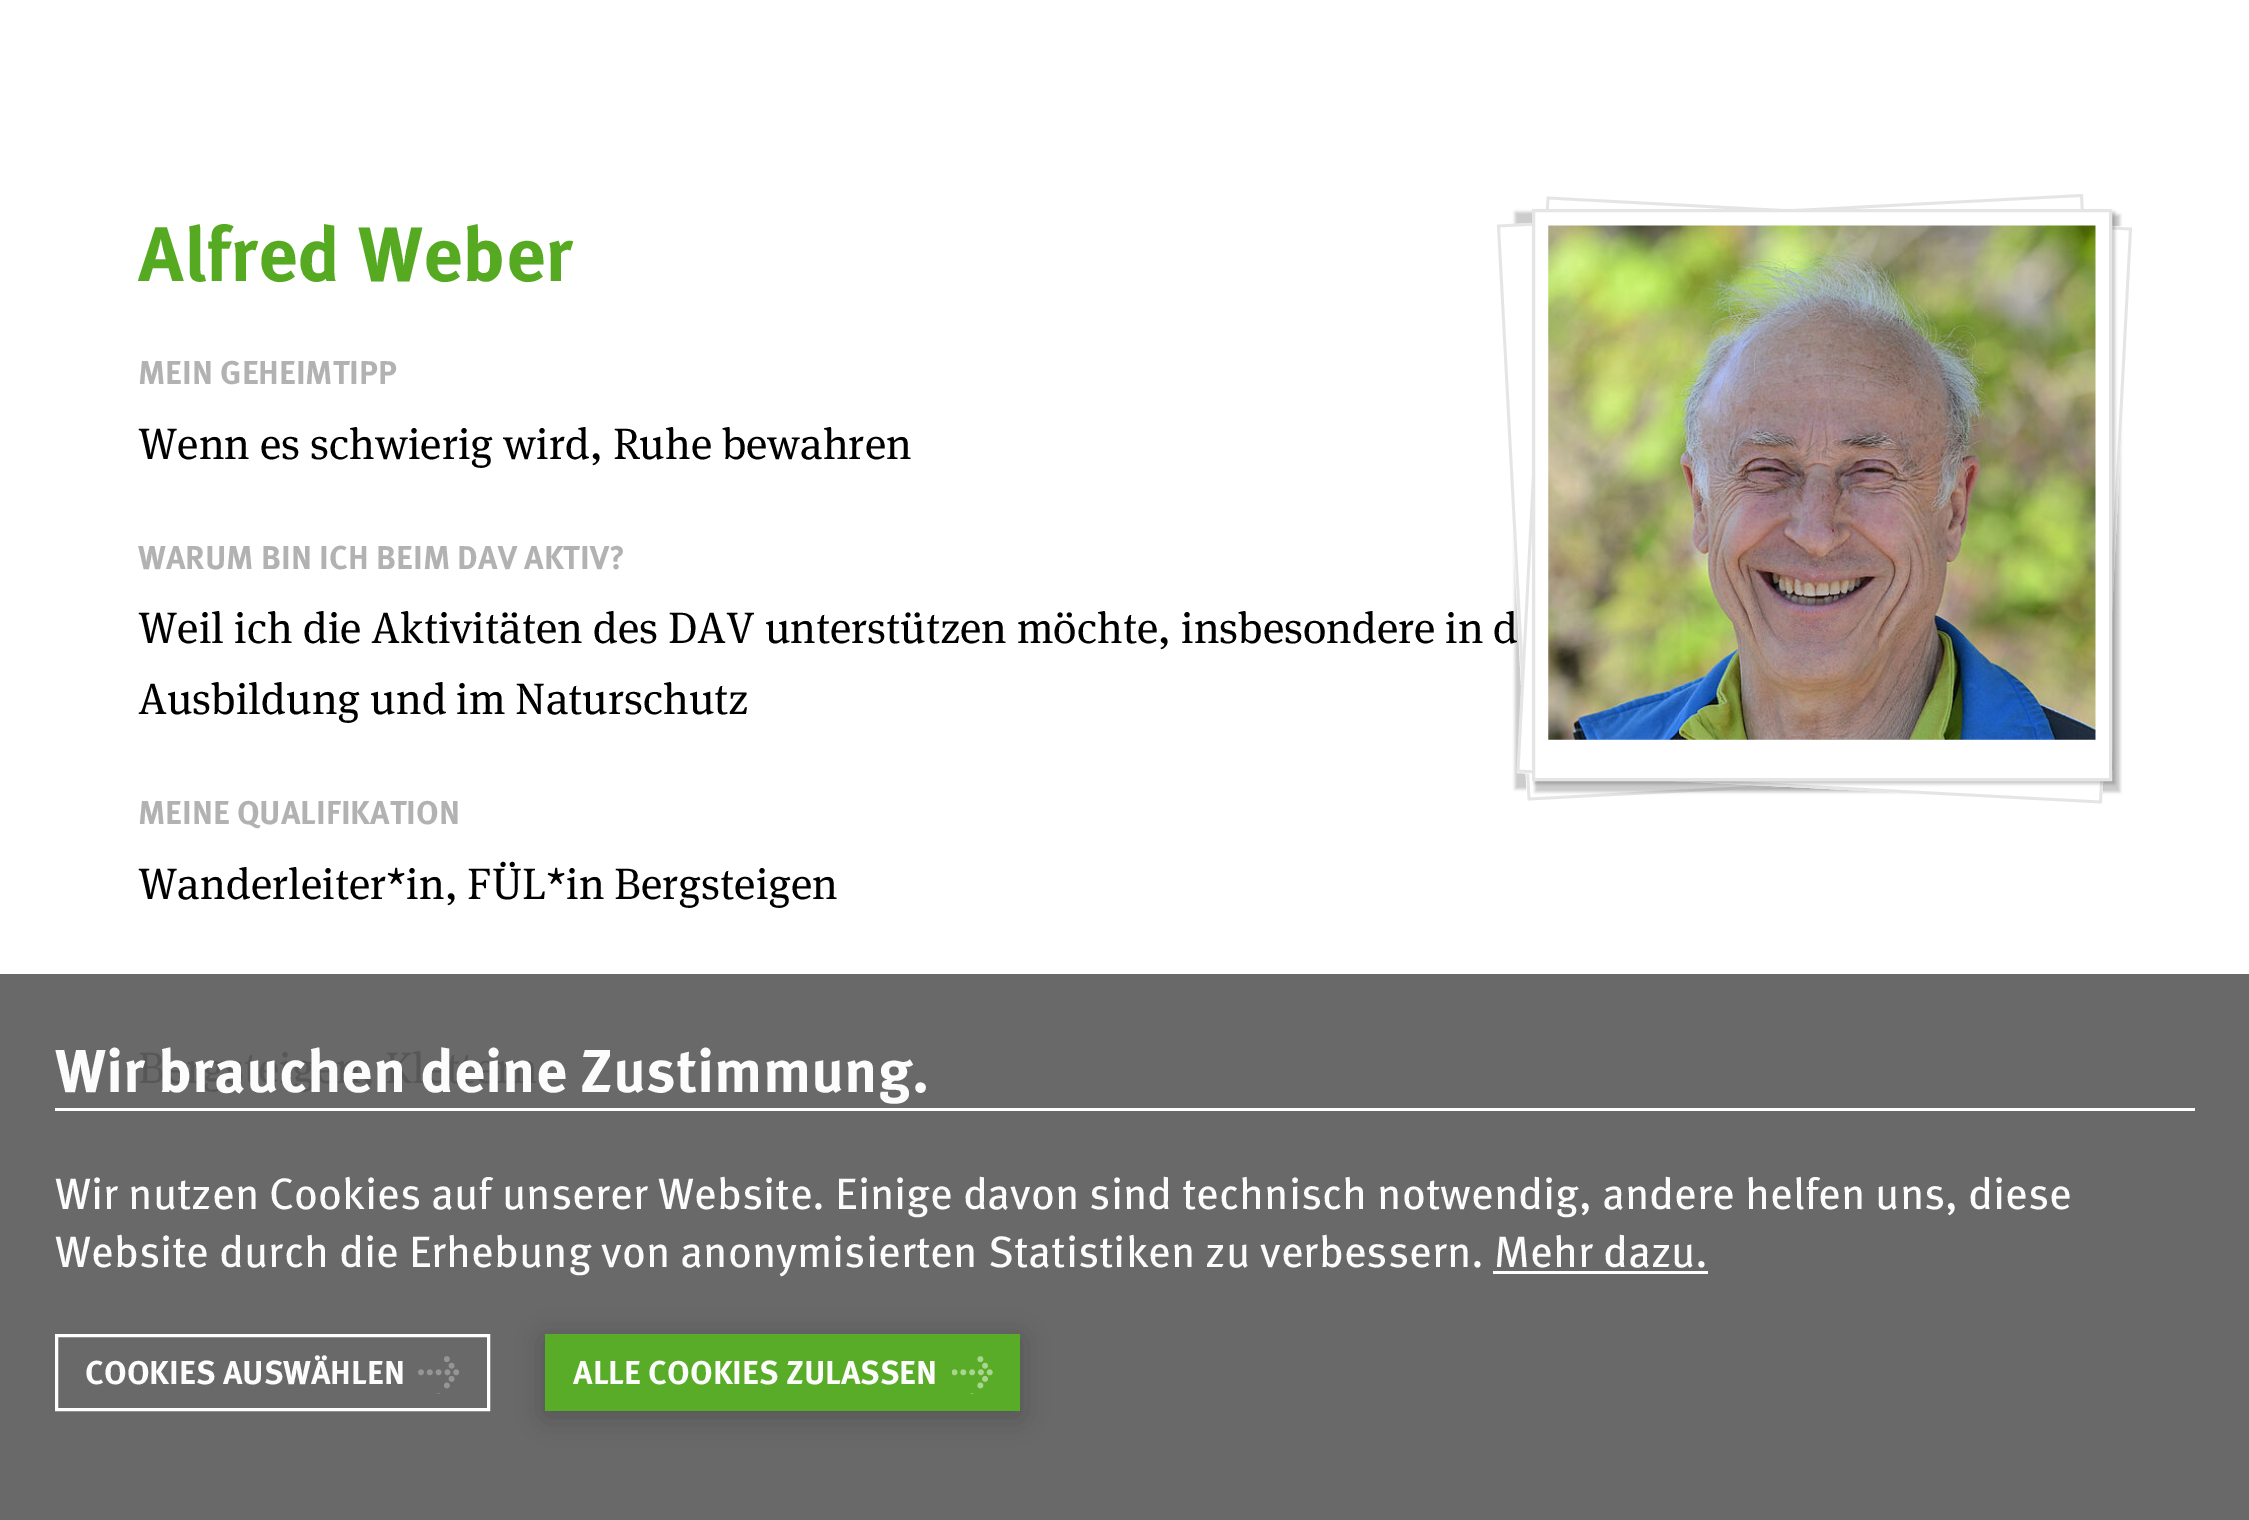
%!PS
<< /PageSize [2249 1520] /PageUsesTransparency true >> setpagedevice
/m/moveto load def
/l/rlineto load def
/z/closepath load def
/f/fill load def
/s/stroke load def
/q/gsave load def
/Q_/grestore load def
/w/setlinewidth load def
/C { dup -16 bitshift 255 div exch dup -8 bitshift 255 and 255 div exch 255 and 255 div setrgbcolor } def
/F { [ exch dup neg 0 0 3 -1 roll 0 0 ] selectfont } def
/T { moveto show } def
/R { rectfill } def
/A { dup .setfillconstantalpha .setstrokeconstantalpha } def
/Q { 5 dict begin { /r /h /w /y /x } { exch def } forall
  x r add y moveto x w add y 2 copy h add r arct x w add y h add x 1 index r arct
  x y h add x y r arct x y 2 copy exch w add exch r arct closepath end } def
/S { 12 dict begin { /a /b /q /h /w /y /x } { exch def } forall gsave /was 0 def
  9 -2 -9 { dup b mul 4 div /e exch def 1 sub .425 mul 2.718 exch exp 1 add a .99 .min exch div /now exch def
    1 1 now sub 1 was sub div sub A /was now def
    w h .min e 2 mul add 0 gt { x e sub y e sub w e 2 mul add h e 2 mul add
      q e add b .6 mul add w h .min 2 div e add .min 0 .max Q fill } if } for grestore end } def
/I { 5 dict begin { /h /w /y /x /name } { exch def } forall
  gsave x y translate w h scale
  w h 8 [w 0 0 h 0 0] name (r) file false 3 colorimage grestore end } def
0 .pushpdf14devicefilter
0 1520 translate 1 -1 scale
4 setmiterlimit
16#FFFFFF C
0 0 2249 1520 R
16#696969 C
0 974 2249 546 R
/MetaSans-Bold 77 F
16#55AA22 C
(Alfred Weber) 138 281 T
/MetaSans-Bold 33 F
16#B2B2B2 C
(MEIN GEHEIMTIPP) 138 384 T
/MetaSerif-Regular 44 F
16#000000 C
(Wenn es schwierig wird, Ruhe bewahren) 138 459 T
/MetaSans-Bold 33 F
16#B2B2B2 C
(WARUM BIN ICH BEIM DAV AKTIV?) 138 569 T
/MetaSerif-Regular 44 F
16#000000 C
(Weil ich die Aktivitäten des DAV unterstützen möchte, insbesondere in d) 138 643 T
(Ausbildung und im Naturschutz) 138 714 T
/MetaSans-Bold 33 F
16#B2B2B2 C
(MEINE QUALIFIKATION) 138 824 T
/MetaSerif-Regular 44 F
16#000000 C
(Wanderleiter*in, FÜL*in Bergsteigen) 138 899 T
16#575757 C
(Bergsteigen, Klettern) 138 1083 T
16#000000 C
1515 212 586 577 0 1.5 .2 S
16#FFFFFF C
1497 225 m 586 -31 l 30 576 l -586 30 l z f
16#E5E5E5 C
2.8 w
1498.5 226 m 583 -30.5 l 30 573 l -582.5 30.5 l z s
16#000000 C
1535 215 585 577 0 1.5 .2 S
16#FFFFFF C
1547 197 m 585 30 l -30 576 l -585 -30 l z f
16#E5E5E5 C
1548 198 m 582.5 31 l -30 573 l -582.5 -31 l z s
16#000000 C
1535 212 580 572 0 1.5 .2 S
16#FFFFFF C
1533.5 210.5 m 577 0 l 0 569 l -577 0 l z q f Q_
16#E5E5E5 C
3 w
s
(1.rgb) 1548 225 548 515 I
16#FFFFFF C
55 1108 2140 3 R
/MetaSans-Bold 60.5 F
16#FCFCFC C
(Wir brauchen deine Zustimmung.) 55 1092 T
/MetaSans-Regular 44 F
(Wir nutzen Cookies auf unserer Website. Einige davon sind technisch notwendig, andere helfen uns, diese) 55 1209 T
(Website durch die Erhebung von anonymisierten Statistiken zu verbessern. Mehr dazu.) 55 1267 T
16#FFFFFF C
1493 1271 215 3 R
56.5 1335.5 432 74 rectstroke
/MetaSans-Bold 33 F
16#FCFCFC C
(COOKIES AUSWÄHLEN) 85 1384 T
(2.rgb) 418 1356 41 38 I
16#050505 C
545 1339 475 77 0 14 .2 S
16#59AC27 C
545 1334 475 77 R
16#FCFCFC C
(ALLE COOKIES ZULASSEN) 573 1384 T
(3.rgb) 952 1356 41 38 I
.poppdf14devicefilter showpage
